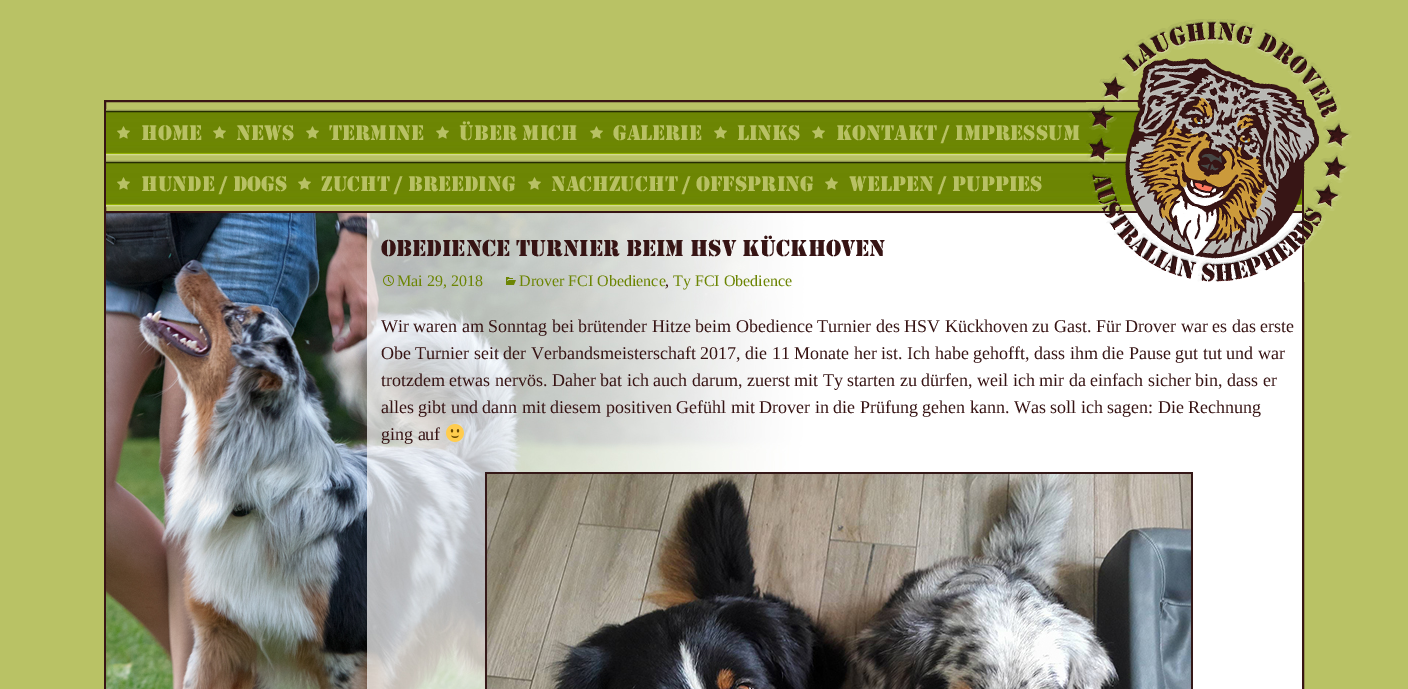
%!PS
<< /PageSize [1408 689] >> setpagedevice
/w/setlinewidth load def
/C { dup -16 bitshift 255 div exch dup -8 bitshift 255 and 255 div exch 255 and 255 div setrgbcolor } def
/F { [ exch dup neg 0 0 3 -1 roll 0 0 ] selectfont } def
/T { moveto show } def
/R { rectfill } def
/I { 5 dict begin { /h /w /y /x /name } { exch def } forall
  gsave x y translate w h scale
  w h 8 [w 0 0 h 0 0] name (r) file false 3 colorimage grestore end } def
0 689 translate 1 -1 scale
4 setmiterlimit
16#B9C265 C
0 0 1408 689 R
16#381414 C
2 w
105 101 1198 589 rectstroke
(1.rgb) 106 109 1196 98 I
(2.rgb) 117 126 13 13 I
/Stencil-Regular 22 F
16#B8C164 C
(HOME) 141 140 T
(2.rgb) 213 126 13 13 I
(NEWS) 236 140 T
(2.rgb) 306 126 13 13 I
(TERMINE) 329 140 T
(2.rgb) 436 126 13 13 I
(ÜBER MICH) 459 140 T
(2.rgb) 590 126 13 13 I
(GALERIE) 613 140 T
(2.rgb) 714 126 13 13 I
(LINKS) 737 140 T
(2.rgb) 812 126 13 13 I
(KONTAKT / IMPRESSUM) 836 140 T
(2.rgb) 117 177 13 13 I
(HUNDE / DOGS) 141 191 T
(2.rgb) 298 177 13 13 I
(ZUCHT / BREEDING) 321 191 T
(2.rgb) 528 177 13 13 I
(NACHZUCHT / OFFSPRING) 551 191 T
(2.rgb) 825 177 13 13 I
(WELPEN / PUPPIES) 849 191 T
16#361413 C
106 211 1196 2 R
(4.rgb) 106 213 1196 476 I
(3.rgb) 1086 19 266 263 I
/Stencil-Regular 24 F
16#371414 C
(OBEDIENCE TURNIER BEIM HSV KÜCKHOVEN) 381 256 T
(5.rgb) 383 275 11 11 I
/LiberationSerif-Regular 16 F
16#6C8503 C
(Mai 29, 2018) 397 286 T
(6.rgb) 506 277 10 8 I
(Drover FCI Obedience) 519 286 T
16#371414 C
(,) 665 286 T
16#6C8503 C
(Ty FCI Obedience) 673 286 T
/LiberationSerif-Regular 18 F
16#371414 C
(Wir waren am Sonntag bei brütender Hitze beim Obedience Turnier des HSV Kückhoven zu Gast. Für Drover war es das erste) 381 332 T
(Obe Turnier seit der Verbandsmeisterschaft 2017, die 11 Monate her ist. Ich habe gehofft, dass ihm die Pause gut tut und war) 381 359 T
(trotzdem etwas nervös. Daher bat ich auch darum, zuerst mit Ty starten zu dürfen, weil ich mir da einfach sicher bin, dass er) 381 386 T
(alles gibt und dann mit diesem positiven Gefühl mit Drover in die Prüfung gehen kann. Was soll ich sagen: Die Rechnung) 381 413 T
(ging auf) 381 440 T
(7.rgb) 446 424 18 18 I
(8.rgb) 485 472 708 217 I
showpage
